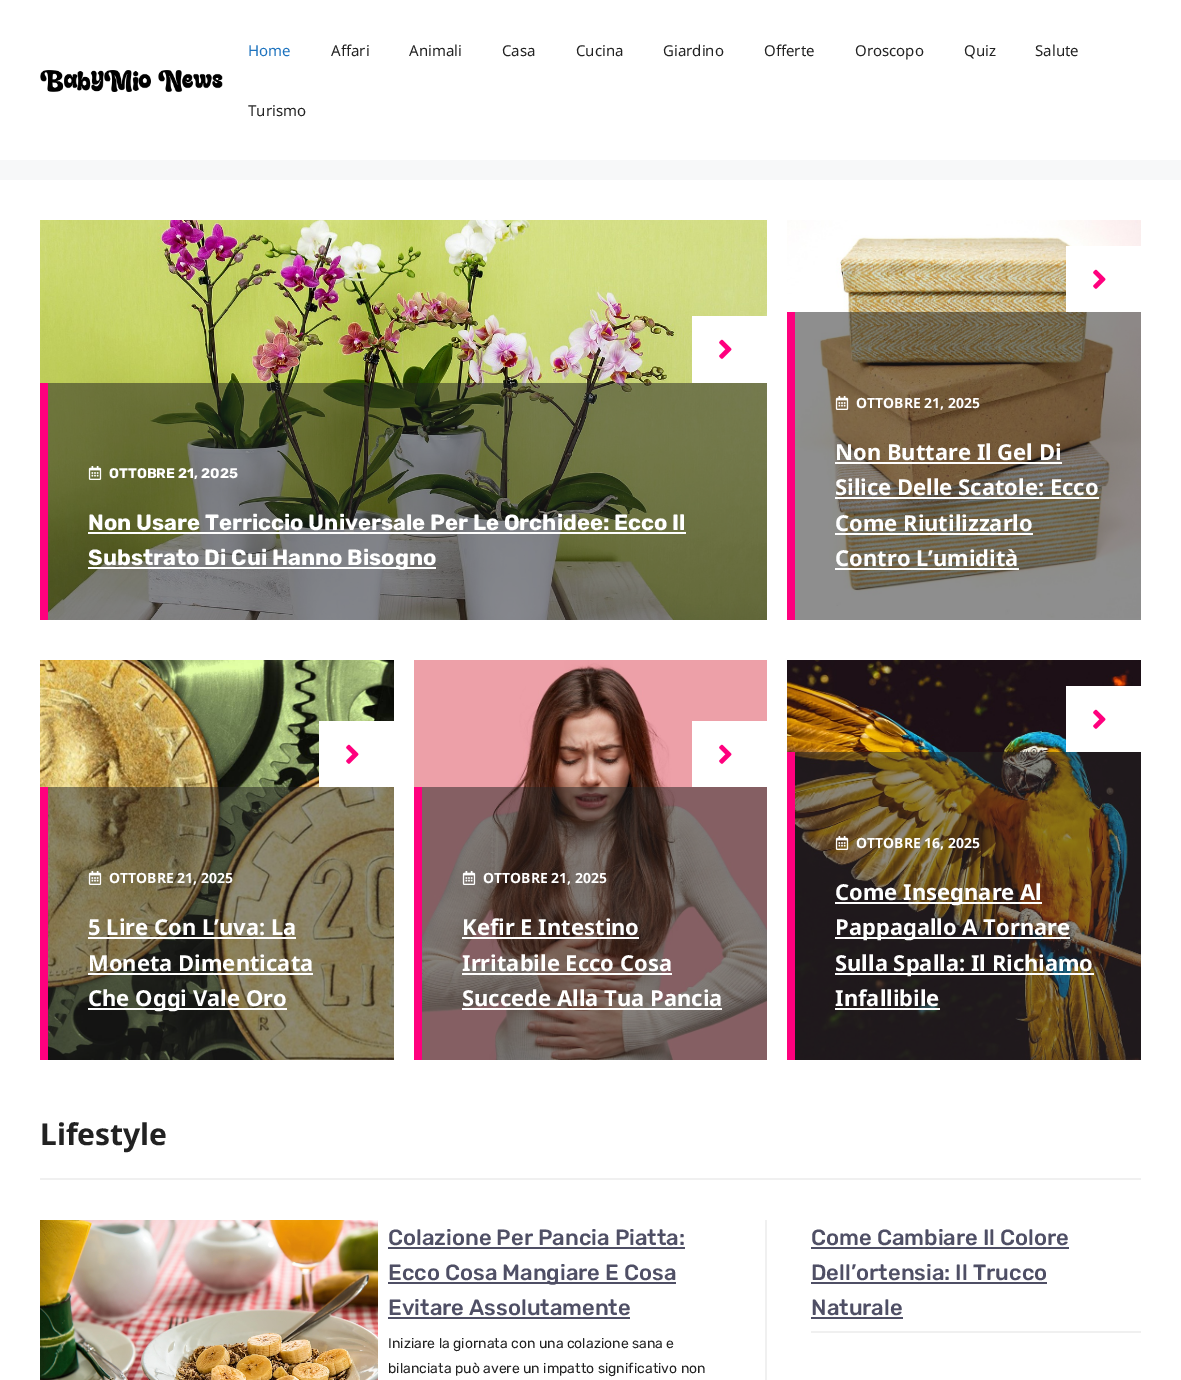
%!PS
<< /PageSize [1181 1380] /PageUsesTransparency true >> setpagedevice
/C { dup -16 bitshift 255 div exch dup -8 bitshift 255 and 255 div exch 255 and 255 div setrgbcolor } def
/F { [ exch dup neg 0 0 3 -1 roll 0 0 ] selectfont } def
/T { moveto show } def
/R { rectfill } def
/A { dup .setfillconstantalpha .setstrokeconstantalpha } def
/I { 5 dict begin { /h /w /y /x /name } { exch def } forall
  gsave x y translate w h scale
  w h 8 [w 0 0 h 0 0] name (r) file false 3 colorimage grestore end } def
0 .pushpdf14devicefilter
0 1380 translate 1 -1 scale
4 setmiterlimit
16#F7F8F9 C
0 0 1181 1380 R
16#FFFFFF C
0 0 1181 160 R
(1.rgb) 40 70 183 22 I
/NotoSans-Regular 15 F
16#1E73BE C
(Home) 248 56 T
16#222222 C
(Affari) 331 56 T
(Animali) 409 56 T
(Casa) 502 56 T
(Cucina) 576 56 T
(Giardino) 663 56 T
(Offerte) 764 56 T
(Oroscopo) 855 56 T
(Quiz) 964 56 T
(Salute) 1035 56 T
(Turismo) 248 116 T
16#FFFFFF C
0 180 1181 1200 R
(2.rgb) 40 220 727 400 I
692 316 75 67 R
(3.rgb) 719 339 13 20 I
0.51 A
16#212121 C
48 383 719 237 R
1 A
16#FF007E C
40 383 8 237 R
(4.rgb) 88 466 14 14 I
/Rubik-Bold 14 F
16#FFFFFF C
(OTTOBRE 21, 2025) 109 478 T
/Rubik-Bold 22 F
(Non Usare Terriccio Universale Per Le Orchidee: Ecco Il) 88 530 T
88 532 598 2 R
88 567 348 2 R
(Substrato Di Cui Hanno Bisogno) 88 565 T
(5.rgb) 787 220 354 398 I
1066 246 75 66 R
(3.rgb) 1093 269 13 20 I
0.51 A
16#212121 C
795 312 346 308 R
1 A
16#FF007E C
787 312 8 308 R
(6.rgb) 835 396 14 14 I
/NotoSans-Bold 14 F
16#FFFFFF C
(OTTOBRE 21, 2025) 856 408 T
/NotoSans-Bold 22 F
(Non Buttare Il Gel Di) 835 460 T
835 462 227 2 R
(Silice Delle Scatole: Ecco) 835 495 T
835 497 264 2 R
(Come Riutilizzarlo) 835 531 T
835 533 198 2 R
(Contro L’umidità) 835 566 T
835 568 184 2 R
(7.rgb) 40 660 354 400 I
319 721 75 66 R
(3.rgb) 346 744 13 20 I
0.51 A
16#212121 C
48 787 346 273 R
1 A
16#FF007E C
40 787 8 273 R
(8.rgb) 88 871 14 14 I
/NotoSans-Bold 14 F
16#FFFFFF C
(OTTOBRE 21, 2025) 109 883 T
/NotoSans-Bold 22 F
(5 Lire Con L’uva: La) 88 935 T
88 937 208 2 R
(Moneta Dimenticata) 88 971 T
88 973 225 2 R
88 1008 199 2 R
(Che Oggi Vale Oro) 88 1006 T
(9.rgb) 414 660 353 400 I
692 721 75 66 R
(3.rgb) 719 744 13 20 I
0.51 A
16#212121 C
422 787 345 273 R
1 A
16#FF007E C
414 787 8 273 R
(10.rgb) 462 871 14 14 I
/NotoSans-Bold 14 F
16#FFFFFF C
(OTTOBRE 21, 2025) 483 883 T
/NotoSans-Bold 22 F
(Kefir E Intestino) 462 935 T
462 937 177 2 R
(Irritabile Ecco Cosa) 462 971 T
462 973 210 2 R
(Succede Alla Tua Pancia) 462 1006 T
462 1008 260 2 R
(11.rgb) 787 660 354 400 I
1066 686 75 66 R
(3.rgb) 1093 709 13 20 I
0.51 A
16#212121 C
795 752 346 308 R
1 A
16#FF007E C
787 752 8 308 R
(12.rgb) 835 836 14 14 I
/NotoSans-Bold 14 F
16#FFFFFF C
(OTTOBRE 16, 2025) 856 848 T
835 902 207 2 R
/NotoSans-Bold 22 F
(Come Insegnare Al) 835 900 T
835 937 235 2 R
(Pappagallo A Tornare) 835 935 T
835 973 259 2 R
(Sulla Spalla: Il Richiamo) 835 971 T
(Infallibile) 835 1006 T
835 1008 105 2 R
16#F0F0F0 C
40 1178 1101 2 R
/NotoSans-Bold 30 F
16#222222 C
(Lifestyle) 40 1145 T
16#F0F0F0 C
765 1220 2 160 R
(13.rgb) 40 1220 338 160 I
/Rubik-Medium 22 F
16#4F4F65 C
(Colazione Per Pancia Piatta:) 388 1245 T
388 1247 297 2 R
388 1282 288 2 R
(Ecco Cosa Mangiare E Cosa) 388 1280 T
(Evitare Assolutamente) 388 1315 T
388 1317 242 2 R
/Rubik-Regular 14 F
16#222222 C
(Iniziare la giornata con una colazione sana e) 388 1348 T
(bilanciata può avere un impatto significativo non) 388 1373 T
16#F0F0F0 C
811 1331 330 2 R
/Rubik-Medium 22 F
16#4F4F65 C
(Come Cambiare Il Colore) 811 1245 T
811 1247 258 2 R
(Dell’ortensia: Il Trucco) 811 1280 T
811 1282 236 2 R
(Naturale) 811 1315 T
811 1317 92 2 R
.poppdf14devicefilter showpage
